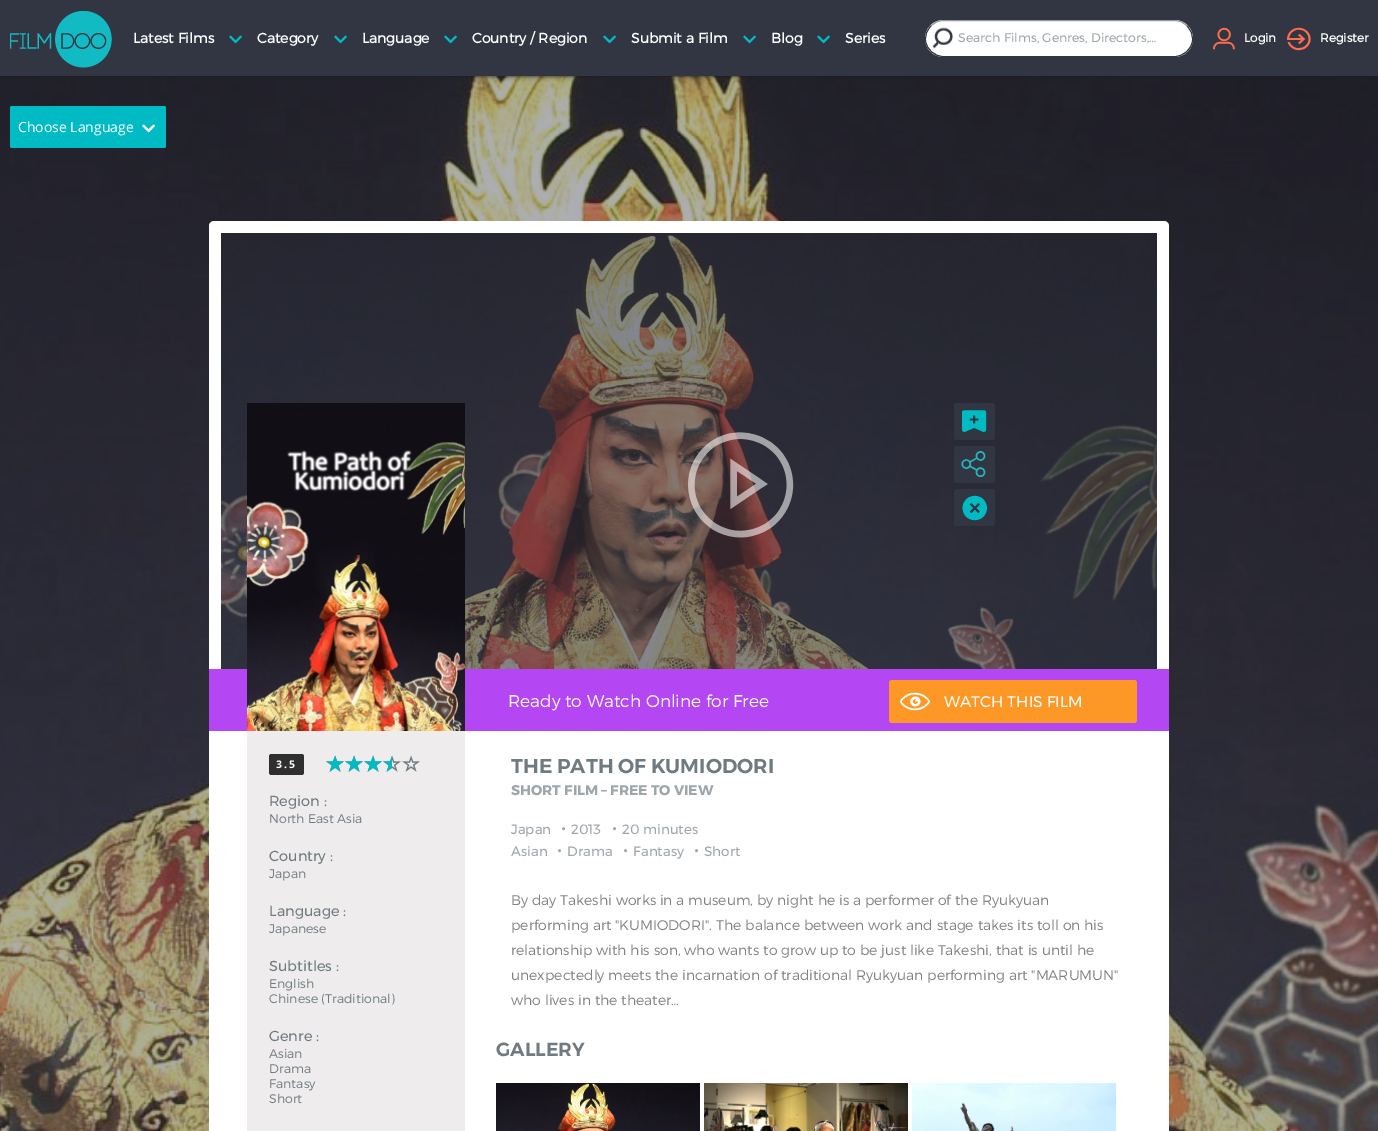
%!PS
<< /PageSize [1378 1131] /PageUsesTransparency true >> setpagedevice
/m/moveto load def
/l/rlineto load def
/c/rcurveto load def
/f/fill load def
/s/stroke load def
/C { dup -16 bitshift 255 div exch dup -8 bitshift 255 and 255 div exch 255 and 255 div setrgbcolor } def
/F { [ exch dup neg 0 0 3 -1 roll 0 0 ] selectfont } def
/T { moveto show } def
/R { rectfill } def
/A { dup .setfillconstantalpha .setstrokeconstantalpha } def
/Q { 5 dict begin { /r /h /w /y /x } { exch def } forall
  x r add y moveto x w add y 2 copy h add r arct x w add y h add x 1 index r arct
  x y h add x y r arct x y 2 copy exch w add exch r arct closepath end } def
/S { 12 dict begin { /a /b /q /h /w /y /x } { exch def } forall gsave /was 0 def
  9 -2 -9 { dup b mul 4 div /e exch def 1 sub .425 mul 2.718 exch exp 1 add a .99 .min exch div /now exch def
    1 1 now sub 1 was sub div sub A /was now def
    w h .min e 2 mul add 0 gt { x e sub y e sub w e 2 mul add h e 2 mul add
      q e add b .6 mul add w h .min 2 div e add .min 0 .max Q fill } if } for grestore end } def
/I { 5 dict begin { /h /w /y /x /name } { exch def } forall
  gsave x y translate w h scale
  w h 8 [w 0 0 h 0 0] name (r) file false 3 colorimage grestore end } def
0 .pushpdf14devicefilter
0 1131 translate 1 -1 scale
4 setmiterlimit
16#FFFFFF C
0 0 1378 1131 R
(7.rgb) 0 76 1378 1055 I
16#1B1B1B C
0 0 1378 76 0 2.5 1 S
16#323542 C
0 0 1378 76 R
(1.rgb) 10 11 102 57 I
/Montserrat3-Bold 14 F
16#FFFFFF C
(Latest Films) 133 43 T
(2.rgb) 229 35 13 9 I
(Category) 257 43 T
(2.rgb) 334 35 13 9 I
(Language) 362 43 T
(2.rgb) 444 35 13 9 I
(Country / Region) 472 43 T
(2.rgb) 603 35 13 9 I
(Submit a Film) 631 43 T
(2.rgb) 743 35 13 9 I
(Blog) 771 43 T
(2.rgb) 817 35 13 9 I
(Series) 845 43 T
925 20 268 37 18.5 Q f
16#999AA1 C
931 26 m 3 -3.5 7.5 -5.5 12.5 -5.5 c 231 0 l 5 0 9.5 2 12.5 5.5 c s
16#323542 C
1187 26 m 4 3.5 6 9 5.5 14.5 c -1 9 -9 16 -18 16 c -231 0 l -9 0 -17 -7 -18 -16 c -.5 -5.5 1.5 -11 5.5 -14.5 c s
(3.rgb) 932 27 21 21 I
/Montserrat-Regular 12.5 F
16#9EA6AB C
(Search Films, Genres, Directors,…) 958 42 T
(4.rgb) 1213 27 22 23 I
/Montserrat3-Bold 12 F
16#FFFFFF C
(Login) 1244 42 T
(5.rgb) 1287 27 24 24 I
(Register) 1320 42 T
16#00BBC3 C
10 106 156 42 2 Q f
/OpenSans-Regular 14 F
16#FFFFFF C
(Choose Language) 18 132 T
(6.rgb) 142 124 13 9 I
209 221 960 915 5 Q f
(8.rgb) 221 233 936 436 I
(9.rgb) 688 432 106 106 I
16#323542 C
954 403 41 37 3 Q f
(10.rgb) 962 410 25 22 I
954 446 41 37 3 Q f
(11.rgb) 961 451 25 26 I
954 489 41 37 3 Q f
(12.rgb) 962 495 26 26 I
16#B447F3 C
209 669 960 62 R
(13.rgb) 247 403 218 328 I
/Montserrat-Light 17 F
16#FFFFFF C
(Ready to Watch Online for Free) 508 707 T
16#FD9827 C
889 680 248 43 3 Q f
(14.rgb) 900 692 30 19 I
/Montserrat-Regular 15.5 F
16#FFFFFF C
(WATCH THIS FILM) 944 707 T
16#EEECEC C
247 731 218 400 R
16#302F2F C
269 754 35 21 2.5 Q f
/OpenSans-Bold 10.5 F
16#FFFFFF C
276 768 m 2 0 (3.5) ashow
(15.rgb) 326 755 18 17 I
(15.rgb) 345 755 18 17 I
(15.rgb) 364 755 18 17 I
(15.rgb) 383 755 18 17 I
(15.rgb) 402 755 18 17 I
(16.rgb) 326 755 18 17 I
(16.rgb) 345 755 18 17 I
(16.rgb) 364 755 18 17 I
(17.rgb) 383 756 9 16 I
/Montserrat-Regular 14.5 F
16#707B81 C
(Region :) 269 806 T
/Montserrat-Light 12.5 F
(North East Asia) 269 823 T
/Montserrat-Regular 14.5 F
(Country :) 269 861 T
/Montserrat-Light 12.5 F
(Japan) 269 878 T
/Montserrat-Regular 14.5 F
(Language :) 269 916 T
/Montserrat-Light 12.5 F
(Japanese) 269 933 T
/Montserrat-Regular 14.5 F
(Subtitles :) 269 971 T
/Montserrat-Light 12.5 F
(English) 269 988 T
(Chinese \(Traditional\)) 269 1003 T
/Montserrat-Regular 14.5 F
(Genre :) 269 1041 T
/Montserrat-Light 12.5 F
(Asian) 269 1058 T
(Drama) 269 1073 T
(Fantasy) 269 1088 T
(Short) 269 1103 T
/Montserrat-SemiBold 20 F
(THE PATH OF KUMIODORI) 511 773 T
/Montserrat-Bold 14 F
16#9EA6AB C
(SHORT FILM – FREE TO VIEW) 511 795 T
/Montserrat-Regular 13.5 F
(Japan) 511 834 T
/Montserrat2-Bold 22 F
(.) 561 830 T
/Montserrat-Regular 13.5 F
(2013) 571 834 T
/Montserrat2-Bold 22 F
(.) 612 830 T
/Montserrat-Regular 13.5 F
(20 minutes) 622 834 T
(Asian) 511 856 T
/Montserrat2-Bold 22 F
(.) 557 852 T
/Montserrat-Regular 13.5 F
(Drama) 567 856 T
/Montserrat2-Bold 22 F
(.) 623 852 T
/Montserrat-Regular 13.5 F
(Fantasy) 633 856 T
/Montserrat2-Bold 22 F
(.) 694 852 T
/Montserrat-Regular 13.5 F
(Short) 704 856 T
/Montserrat-Light 14 F
16#7F8182 C
(By day Takeshi works in a museum, by night he is a performer of the Ryukyuan) 511 905 T
(performing art "KUMIODORI". The balance between work and stage takes its toll on his) 511 930 T
(relationship with his son, who wants to grow up to be just like Takeshi, that is until he) 511 955 T
(unexpectedly meets the incarnation of traditional Ryukyuan performing art "MARUMUN") 511 980 T
(who lives in the theater…) 511 1005 T
/Montserrat-SemiBold 19 F
16#707B81 C
(GALLERY) 496 1056 T
(18.rgb) 496 1083 204 48 I
(19.rgb) 704 1083 204 48 I
(20.rgb) 912 1083 204 48 I
.poppdf14devicefilter showpage
